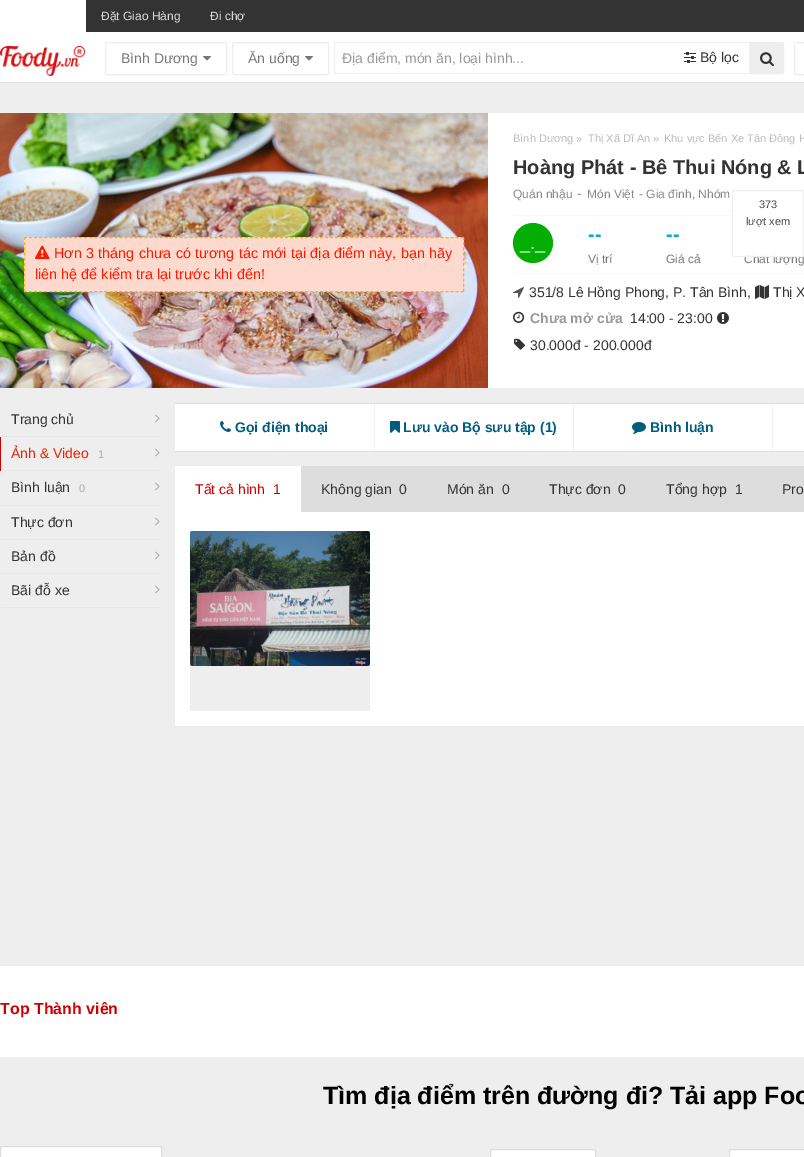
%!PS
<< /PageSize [804 1157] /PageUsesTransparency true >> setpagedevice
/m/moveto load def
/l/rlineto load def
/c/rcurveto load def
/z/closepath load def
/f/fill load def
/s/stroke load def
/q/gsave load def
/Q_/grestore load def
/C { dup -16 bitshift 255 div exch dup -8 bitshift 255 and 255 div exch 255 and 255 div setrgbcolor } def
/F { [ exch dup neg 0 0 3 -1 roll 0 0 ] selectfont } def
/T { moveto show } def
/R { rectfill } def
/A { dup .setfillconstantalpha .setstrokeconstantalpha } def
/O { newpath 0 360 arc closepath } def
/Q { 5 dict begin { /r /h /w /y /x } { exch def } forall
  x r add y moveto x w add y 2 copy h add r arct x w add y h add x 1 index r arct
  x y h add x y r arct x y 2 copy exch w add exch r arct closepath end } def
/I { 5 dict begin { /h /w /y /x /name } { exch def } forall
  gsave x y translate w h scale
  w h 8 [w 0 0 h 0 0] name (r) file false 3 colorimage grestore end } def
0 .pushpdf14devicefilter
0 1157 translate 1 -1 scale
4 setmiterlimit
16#EEEEEE C
0 0 804 1157 R
16#333333 C
86 0 718 32 R
16#FFFFFF C
0 0 86 32 R
/LiberationSans-Regular 12 F
16#DDDDDD C
(Đặt Giao Hàng) 101 20 T
(Đi chợ) 210 20 T
16#FFFFFF C
0 32 804 50 R
16#DDDDDD C
0 82 804 1 R
(1.rgb) 0 46 85 30 I
16#EEEEEE C
105.5 42.5 121 32 1.5 Q s
/LiberationSans-Regular 14 F
16#777777 C
(Bình Dương) 121 63 T
(2.rgb) 203 56 8 5 I
16#EEEEEE C
232.5 42.5 96 32 1.5 Q s
16#777777 C
(Ăn uống) 248 63 T
(2.rgb) 305 56 8 5 I
16#EEEEEE C
334 42 415 1 R
334 73 415 1 R
334 42 1 32 R
16#989898 C
(Địa điểm, món ăn, loại hình...) 342 63 T
(3.rgb) 684 52 12 11 I
16#333333 C
(Bộ lọc) 700 62 T
16#EEEEEE C
749.5 42.5 m 32.5 0 l 1 0 1.5 .5 1.5 1.5 c 0 28 l 0 1 -.5 1.5 -1.5 1.5 c -32.5 0 l z q f Q_
s
(4.rgb) 760 52 14 15 I
794.5 42.5 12 32 1.5 Q s
16#FFFFFF C
488 113 316 275 R
(5.rgb) 0 113 488 275 I
16#FED9CD C
24 237 440 55 R
16#FAB319 C
[3 2.02] 0 setdash
24 237.5 m 440 0 l s
[3 2.2] 0 setdash
463.5 237 m 0 55 l s
[3 2.02] 0 setdash
24 291.5 m 440 0 l s
[3 2.2] 0 setdash
24.5 237 m 0 55 l s
(6.rgb) 35 245 15 14 I
/LiberationSans-Regular 14.4 F
16#FE1900 C
54 258 m .25 0 32 (Hơn 3 tháng chưa có tương tác mới tại địa điểm này, bạn hãy) widthshow
(liên hệ để kiểm tra lại trước khi đến!) 35 279 T
/LiberationSans-Regular 11 F
16#BBBBBB C
(Bình Dương ») 513 142 T
(Thị Xã Dĩ An ») 588 142 T
(Khu vực Bến Xe Tân Đông H) 664 142 T
/LiberationSans-Bold 20 F
16#333333 C
(Hoàng Phát - Bê Thui Nóng & L) 513 174 T
/LiberationSans-Regular 12 F
16#888888 C
(Quán nhậu) 513 198 T
/LiberationSans-Regular 14 F
(-) 577 198 T
q
587 183 47 20 rectclip
/LiberationSans-Regular 12 F
(Món Việt) 587 198 T
Q_
/LiberationSans-Regular 12 F
(- Gia đình, Nhóm) 639 198 T
16#F8F8F8 C
513 215 291 1 R
513 273 291 1 R
16#03AE03 C
533 243 20 O f
/LiberationSans-Regular 18 F
16#FFFFFF C
(_._) 520 249 T
/LiberationSans-Bold 20 F
16#02AAD4 C
(--) 588 241 T
/LiberationSans-Regular 12 F
16#777777 C
(Vị trí) 588 263 T
/LiberationSans-Bold 20 F
16#02AAD4 C
(--) 666 241 T
/LiberationSans-Regular 12 F
16#777777 C
(Giá cả) 666 263 T
(Chất lượng) 744 263 T
(7.rgb) 513 287 11 11 I
/LiberationSans-Regular 14 F
16#333333 C
(351/8 Lê Hồng Phong, P. Tân Bình,) 529 297 T
(8.rgb) 755 285 14 14 I
(Thị X) 773 297 T
(9.rgb) 513 311 12 12 I
/LiberationSans-Bold 14 F
16#989898 C
(Chưa mở cửa) 530 323 T
/LiberationSans-Regular 14 F
16#333333 C
(14:00 - 23:00) 630 323 T
(10.rgb) 717 312 12 12 I
(11.rgb) 514 338 11 12 I
(30.000đ - 200.000đ) 530 350 T
0.9 A
16#FFFFFF C
732 215 72 42 R
16#EEEEEE C
[] 0 setdash
732.5 190.5 71 66 rectstroke
/LiberationSans-Regular 11 F
1 A
16#474747 C
(373) 759 208 T
(lượt xem) 746 225 T
16#E6E6E6 C
0 436 160 1 R
16#EEEEEE C
0 436 1 1 R
/LiberationSans-Regular 14 F
16#333333 C
(Trang chủ) 11 424 T
(12.rgb) 155 414 5 9 I
16#E6E6E6 C
0 470 160 1 R
16#CC0000 C
0 437 1 34 R
16#E52402 C
(Ảnh & Video) 11 458 T
/LiberationSans-Regular 11 F
16#AAAAAA C
(1) 98 458 T
(12.rgb) 155 448 5 9 I
16#E6E6E6 C
0 505 160 1 R
16#EEEEEE C
0 505 1 1 R
/LiberationSans-Regular 14 F
16#333333 C
(Bình luận) 11 492 T
/LiberationSans-Regular 11 F
16#AAAAAA C
(0) 79 492 T
(12.rgb) 155 482 5 9 I
16#E6E6E6 C
0 539 160 1 R
16#EEEEEE C
0 539 1 1 R
/LiberationSans-Regular 14 F
16#333333 C
(Thực đơn) 11 527 T
(12.rgb) 155 517 5 9 I
16#E6E6E6 C
0 573 160 1 R
16#EEEEEE C
0 573 1 1 R
16#333333 C
(Bản đồ) 11 561 T
(12.rgb) 155 551 5 9 I
16#E6E6E6 C
0 607 160 1 R
16#EEEEEE C
0 607 1 1 R
16#333333 C
(Bãi đỗ xe) 11 595 T
(12.rgb) 155 585 5 9 I
16#FFFFFF C
175 404 629 47 R
16#DDDDDD C
175 403 629 1 R
175 451 629 1 R
16#F0F0F0 C
374 404 1 47 R
(13.rgb) 220 421 11 11 I
/LiberationSans-Bold 14 F
16#005D80 C
(Gọi điện thoại) 235 432 T
16#F0F0F0 C
573 404 1 47 R
(14.rgb) 390 421 10 12 I
16#005D80 C
(Lưu vào Bộ sưu tập \(1\)) 403 432 T
16#F0F0F0 C
772 404 1 47 R
(15.rgb) 632 422 14 12 I
16#005D80 C
(Bình luận) 650 432 T
16#FFFFFF C
175 466 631 260 2 Q f
16#EEEEEE C
190 531 180 180 R
(16.rgb) 190 531 180 135 I
16#DDDDDD C
301 466 503 46 R
16#FFFFFF C
175 466 1 1 R
/LiberationSans-Regular 14 F
16#CC0000 C
(Tất cả hình) 195 494 T
(1) 273 494 T
16#333333 C
(Không gian) 321 494 T
(0) 399 494 T
(Món ăn) 447 494 T
(0) 502 494 T
(Thực đơn) 549 494 T
(0) 618 494 T
(Tổng hợp) 666 494 T
(1) 735 494 T
(Pro) 782 494 T
16#FFFFFF C
0 966 804 91 R
/LiberationSans-Bold 16 F
16#CC0000 C
(Top Thành viên) 0 1014 T
/LiberationSans-Bold 25 F
16#000000 C
(Tìm địa điểm trên đường đi? Tải app Foo) 323 1104 T
16#FFFFFF C
.5 1146.5 m 161 0 l 0 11 l -161 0 l z q f Q_
16#DDDDDD C
s
16#FFFFFF C
490.5 1149.5 105 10 1.5 Q q f Q_
16#DDDDDD C
s
16#FFFFFF C
729.5 1149.5 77 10 1.5 Q q f Q_
16#DDDDDD C
s
.poppdf14devicefilter showpage
